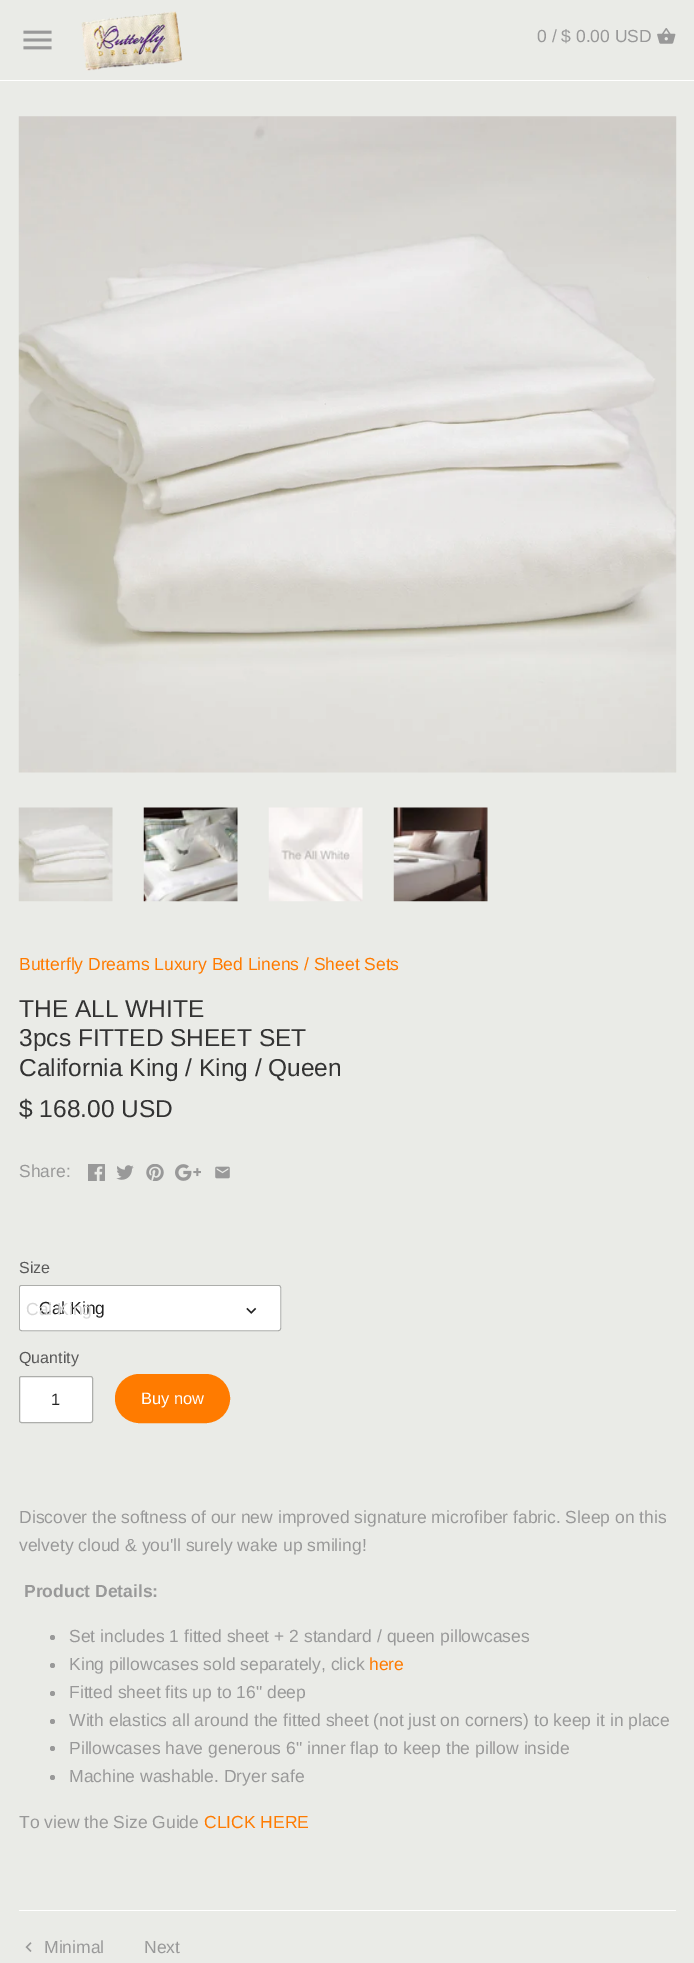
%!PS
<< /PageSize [694 1963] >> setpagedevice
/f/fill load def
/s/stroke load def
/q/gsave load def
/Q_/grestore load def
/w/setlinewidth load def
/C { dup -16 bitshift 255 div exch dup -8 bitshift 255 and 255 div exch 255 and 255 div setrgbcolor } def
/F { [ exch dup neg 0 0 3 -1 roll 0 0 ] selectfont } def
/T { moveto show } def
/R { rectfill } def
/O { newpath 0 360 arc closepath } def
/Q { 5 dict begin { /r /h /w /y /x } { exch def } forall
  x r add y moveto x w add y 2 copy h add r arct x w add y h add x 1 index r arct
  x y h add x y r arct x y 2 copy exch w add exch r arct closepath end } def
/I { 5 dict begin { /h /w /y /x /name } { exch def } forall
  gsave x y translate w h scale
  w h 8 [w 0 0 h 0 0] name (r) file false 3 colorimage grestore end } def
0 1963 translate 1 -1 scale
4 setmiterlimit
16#EAEBE7 C
0 0 694 1963 R
16#FFFFFF C
0 80 694 1 R
(1.rgb) 23 30 29 20 I
(2.rgb) 81 11 102 60 I
/LiberationSans-Regular 17.5 F
16#999999 C
(0 / $ 0.00 USD) 537 42 T
(3.rgb) 657 28 19 16 I
(4.rgb) 18 116 659 657 I
(5.rgb) 18 807 95 95 I
(6.rgb) 143 807 95 95 I
(7.rgb) 268 807 95 95 I
(8.rgb) 393 807 95 95 I
16#FF7B00 C
(Butterfly Dreams Luxury Bed Linens / Sheet Sets) 19 970 T
/LiberationSans-Regular 24.5 F
16#333333 C
(THE ALL WHITE) 19 1017 T
(3pcs FITTED SHEET SET) 19 1046 T
(California King / King / Queen) 19 1076 T
($ 168.00 USD) 19 1117 T
/LiberationSans-Regular 17.5 F
16#999999 C
(Share:) 19 1177 T
(9.rgb) 88 1164 17 17 I
(10.rgb) 116 1165 18 15 I
(11.rgb) 146 1164 18 17 I
(12.rgb) 175 1164 26 17 I
(13.rgb) 215 1166 15 13 I
/LiberationSans-Regular 16 F
16#595959 C
(Size) 19 1273 T
16#FFFFFF C
19.5 1285.5 261 45 2 Q q f Q_
16#ADAEAB C
s
/LiberationSans-Regular 17.5 F
16#222222 C
(Cal King) 39 1314 T
(14.rgb) 246 1307 11 7 I
16#FFFFFF C
20.5 1286.5 259 43 2 Q s
16#D7D7D7 C
(Cal King) 26 1315 T
/LiberationSans-Regular 16 F
16#595959 C
(Quantity) 19 1363 T
16#FFFFFF C
19.5 1376.5 73 46 2 Q q f Q_
16#ADAEAB C
s
/LiberationSans-Regular 16.5 F
16#222222 C
(1) 51 1405 T
16#FF7B00 C
116.5 1375.5 112 46 23 Q q f Q_
3 w
s
16#FFFFFF C
(Buy now) 141 1404 T
/LiberationSans-Regular 17.5 F
16#999999 C
(Discover the softness of our new improved signature microfiber fabric. Sleep on this) 19 1523 T
(velvety cloud & you'll surely wake up smiling!) 19 1551 T
/LiberationSans-Bold 17.5 F
(Product Details:) 24 1597 T
52.5 1637.5 2.5 O f
/LiberationSans-Regular 17.5 F
(Set includes 1 fitted sheet + 2 standard / queen pillowcases) 69 1642 T
52.5 1665.5 2.5 O f
(King pillowcases sold separately, click) 69 1670 T
16#FF7B00 C
(here) 369 1670 T
16#999999 C
52.5 1693.5 2.5 O f
(Fitted sheet fits up to 16" deep) 69 1698 T
52.5 1721.5 2.5 O f
(With elastics all around the fitted sheet \(not just on corners\) to keep it in place) 69 1726 T
52.5 1748.5 2.5 O f
(Pillowcases have generous 6" inner flap to keep the pillow inside) 69 1754 T
52.5 1777.5 2.5 O f
(Machine washable. Dryer safe) 69 1782 T
(To view the Size Guide) 19 1828 T
16#FF7B00 C
(CLICK HERE) 204 1828 T
16#FFFFFF C
19 1910 657 1 R
(15.rgb) 25 1942 7 10 I
16#999999 C
(Minimal) 44 1953 T
(Next) 144 1953 T
showpage
